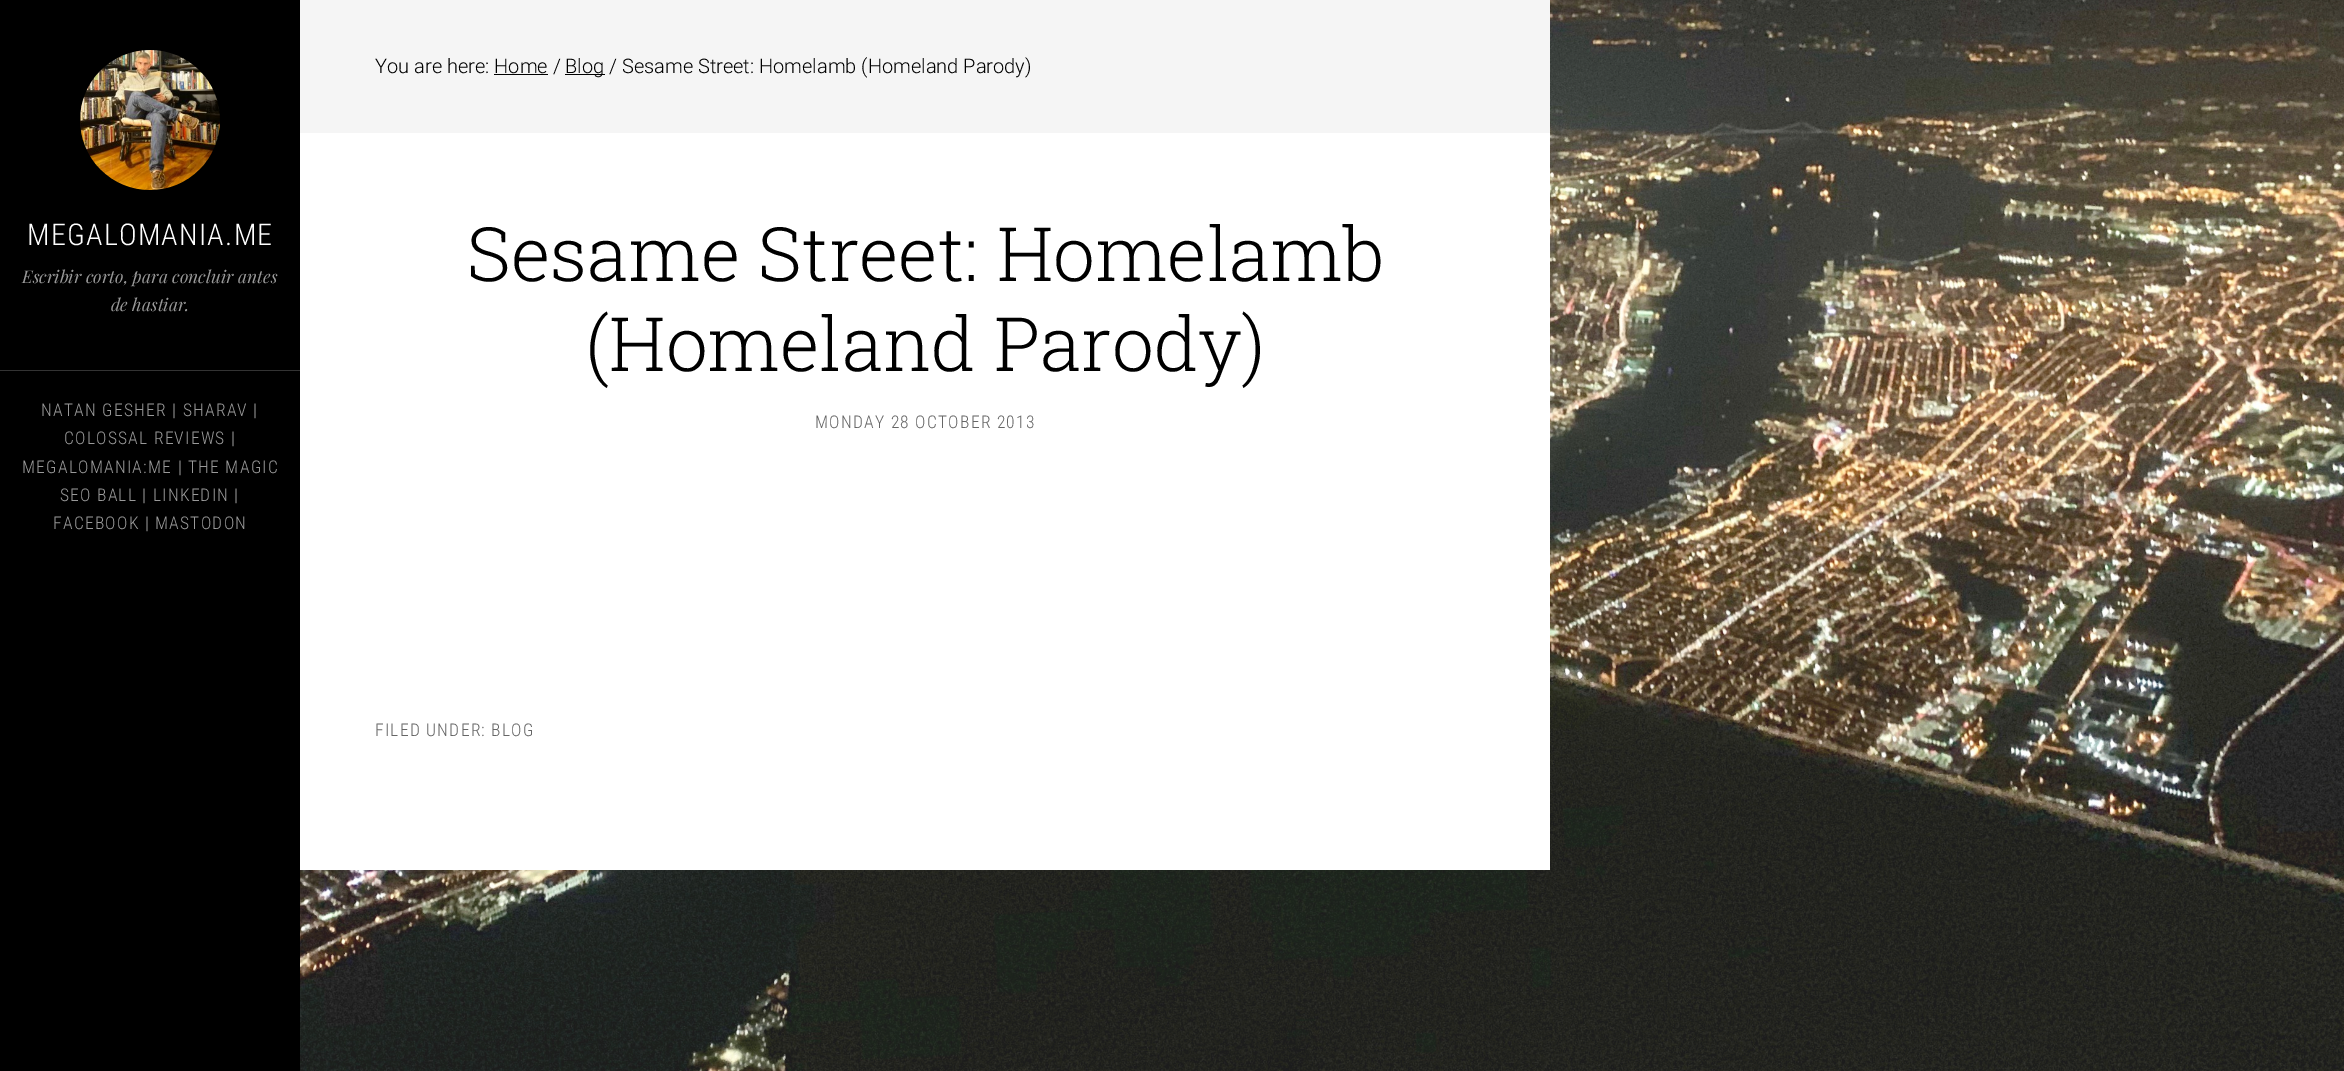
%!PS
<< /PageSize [2344 1071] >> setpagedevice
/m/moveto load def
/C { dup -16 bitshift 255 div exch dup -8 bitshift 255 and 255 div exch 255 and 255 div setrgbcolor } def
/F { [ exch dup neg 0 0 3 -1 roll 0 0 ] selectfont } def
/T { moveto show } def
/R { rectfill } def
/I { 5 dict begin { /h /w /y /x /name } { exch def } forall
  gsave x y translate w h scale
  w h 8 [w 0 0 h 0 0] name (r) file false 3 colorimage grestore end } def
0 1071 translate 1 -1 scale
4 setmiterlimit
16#FFFFFF C
0 0 2344 1071 R
(1.rgb) 300 0 2044 1071 I
16#000000 C
0 0 300 1071 R
(2.rgb) 80 50 140 140 I
/RobotoCondensed-Light 30 F
16#FFFFFF C
27 245 m 1.25 0 (MEGALOMANIA.ME) ashow
/PlayfairDisplay-Italic 17.5 F
16#999999 C
(Escribir corto, para concluir antes) 22 283 T
(de hastiar.) 111 311 T
16#333333 C
0 370 300 1 R
/RobotoCondensed-Light 17.5 F
16#999999 C
41 416 m 1.25 0 (NATAN GESHER | SHARAV |) ashow
64 444 m 1.25 0 (COLOSSAL REVIEWS |) ashow
22 473 m 1.25 0 (MEGALOMANIA:ME | THE MAGIC) ashow
60 501 m 1.25 0 (SEO BALL | LINKEDIN |) ashow
53 529 m 1.25 0 (FACEBOOK | MASTODON) ashow
16#FFFFFF C
300 133 1250 737 R
16#F5F5F5 C
300 0 1250 133 R
/Roboto-Light 20 F
16#000000 C
(You are here: Home /) 375 73 T
565 74 40 1 R
(Blog / Sesame Street: Homelamb \(Homeland Parody\)) 565 73 T
494 74 54 1 R
/RobotoSlab-Light 75 F
(Sesame Street: Homelamb) 467 281 T
(\(Homeland Parody\)) 586 371 T
/RobotoCondensed-Light 17.5 F
16#666666 C
815 428 m 1.25 0 (MONDAY 28 OCTOBER 2013) ashow
375 736 m 1.25 0 (FILED UNDER: BLOG) ashow
showpage
